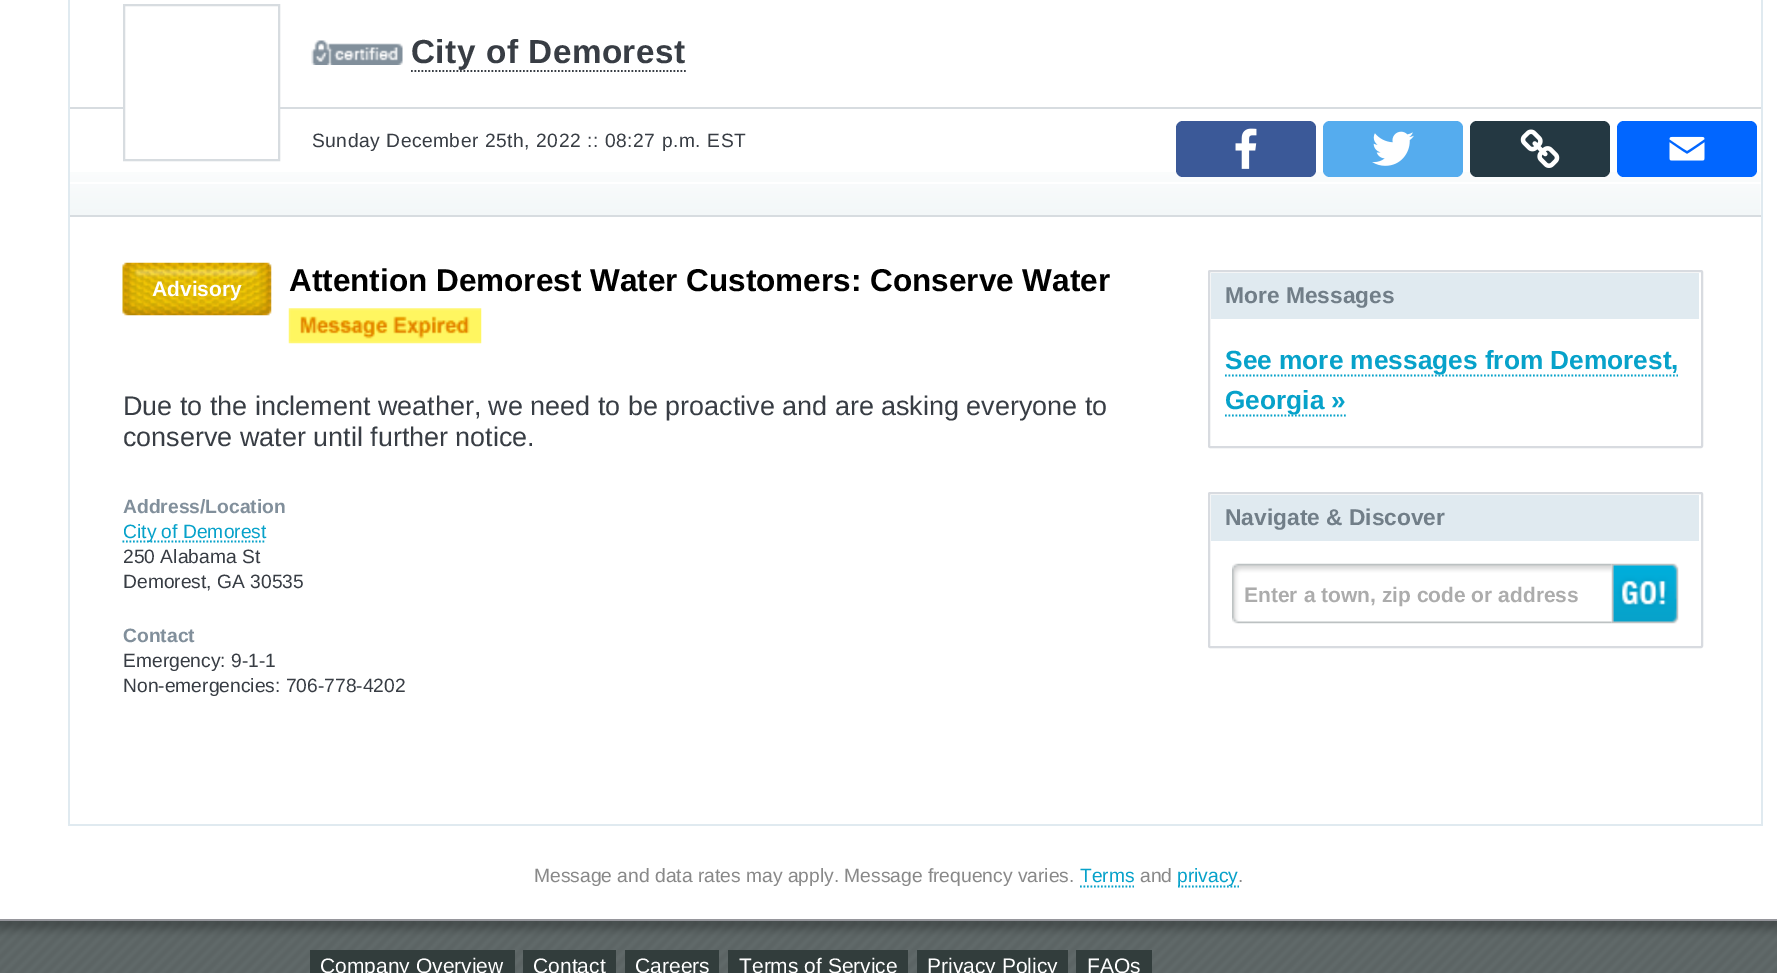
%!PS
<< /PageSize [1777 973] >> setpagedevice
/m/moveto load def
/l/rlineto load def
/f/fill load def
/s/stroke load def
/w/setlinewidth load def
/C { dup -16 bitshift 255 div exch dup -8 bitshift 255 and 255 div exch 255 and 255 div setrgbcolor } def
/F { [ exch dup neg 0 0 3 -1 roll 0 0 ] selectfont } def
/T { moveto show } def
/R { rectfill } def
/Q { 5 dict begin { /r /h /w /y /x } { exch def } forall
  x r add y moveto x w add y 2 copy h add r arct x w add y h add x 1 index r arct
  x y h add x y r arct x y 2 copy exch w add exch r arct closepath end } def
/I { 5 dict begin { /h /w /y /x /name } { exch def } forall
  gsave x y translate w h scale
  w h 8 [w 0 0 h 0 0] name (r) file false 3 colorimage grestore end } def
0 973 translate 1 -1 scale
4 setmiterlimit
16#FFFFFF C
0 0 1777 973 R
16#E0EAF0 C
1761 0 2 826 R
68 824 1694 2 R
68 0 2 826 R
(1.rgb) 70 172 1691 43 I
16#D7DCE0 C
70 215 1691 2 R
70 107 1691 2 R
16#FFFFFF C
125 107 153 2 R
16#D7DCE0 C
2 w
124 5 155 155 rectstroke
(2.rgb) 311 40 92 25 I
/LiberationSans-Bold 33.25 F
16#383D44 C
411 63 m .5 0 32 .45 0 (City of Demorest) awidthshow
1.8 w
[1.75 1.75] 0 setdash
411 71 m 275 0 l s
16#FFFFFF C
70 182 1691 2 R
/LiberationSans-Regular 19.25 F
16#383D44 C
312 147 m .5 0 32 .45 0 (Sunday December 25th, 2022 :: 08:27 p.m. EST) awidthshow
16#3B5998 C
1176 121 140 56 7 Q f
(3.rgb) 1235 128 22 41 I
16#55ACEE C
1323 121 140 56 7 Q f
(4.rgb) 1372 131 42 35 I
16#243842 C
1470 121 140 56 7 Q f
(5.rgb) 1520 129 40 39 I
16#0166FF C
1617 121 140 56 7 Q f
(6.rgb) 1669 136 36 25 I
(7.rgb) 122 262 150 54 I
/LiberationSans-Bold 21 F
16#FFFFFF C
(Advisory) 152 296 T
/LiberationSans-Bold 31.5 F
16#000000 C
(Attention Demorest Water Customers: Conserve Water) 289 291 T
(8.rgb) 288 308 194 36 I
/LiberationSans-Regular 26.95 F
16#383D44 C
(Due to the inclement weather, we need to be proactive and are asking everyone to) 123 415 T
(conserve water until further notice.) 123 446 T
/LiberationSans-Bold 19.25 F
16#818F9B C
(Address/Location) 123 513 T
16#07A2CA C
122.5 541.5 m 143.5 0 l s
/LiberationSans-Regular 19.25 F
(City of Demorest) 123 538 T
16#383D44 C
(250 Alabama St) 123 563 T
(Demorest, GA 30535) 123 588 T
/LiberationSans-Bold 19.25 F
16#818F9B C
(Contact) 123 642 T
/LiberationSans-Regular 19.25 F
16#383D44 C
(Emergency: 9-1-1) 123 667 T
(Non-emergencies: 706-778-4202) 123 692 T
16#D8DBE0 C
2 w
[] 0 setdash
1209 271 493 176 1 Q s
16#E0EAF0 C
1211 273 488 46 R
/LiberationSans-Bold 22.75 F
16#717E88 C
(More Messages) 1225 303 T
16#07A2CA C
1.8 w
[1.75 1.75] 0 setdash
1225 375.5 m 453 0 l s
/LiberationSans-Bold 26.25 F
(See more messages from Demorest,) 1225 369 T
1225 415.5 m 121 0 l s
(Georgia ») 1225 409 T
16#D8DBE0 C
2 w
[] 0 setdash
1209 493 493 154 1 Q s
16#E0EAF0 C
1211 495 488 46 R
/LiberationSans-Bold 22.75 F
16#717E88 C
(Navigate & Discover) 1225 525 T
(9.rgb) 1232 563 380 61 I
/LiberationSans-Bold 21 F
16#ACACAC C
(Enter a town, zip code or address) 1244 602 T
(10.rgb) 1611 563 68 61 I
/LiberationSans-Regular 19.25 F
16#898989 C
(Message and data rates may apply. Message frequency varies.) 534 882 T
16#07A2CA C
(Terms) 1080 882 T
1.8 w
[1.75 1.75] 0 setdash
1080 886.5 m 54 0 l s
16#898989 C
(and) 1140 882 T
16#07A2CA C
1178 886.5 m 61 0 l s
(privacy) 1177 882 T
16#898989 C
(.) 1238 882 T
(11.rgb) 0 921 1777 52 I
16#96969C C
0 919 1777 2 R
16#323D3C C
310 950 205 23 R
/LiberationSans-Regular 21 F
16#FFFFFF C
(Company Overview) 320 973 T
16#323D3C C
523 950 93 23 R
16#FFFFFF C
(Contact) 533 973 T
16#323D3C C
625 950 94 23 R
16#FFFFFF C
(Careers) 635 973 T
16#323D3C C
728 950 180 23 R
16#FFFFFF C
(Terms of Service) 739 973 T
16#323D3C C
917 950 151 23 R
16#FFFFFF C
(Privacy Policy) 927 973 T
16#323D3C C
1076 950 76 23 R
16#FFFFFF C
(FAQs) 1087 973 T
showpage
